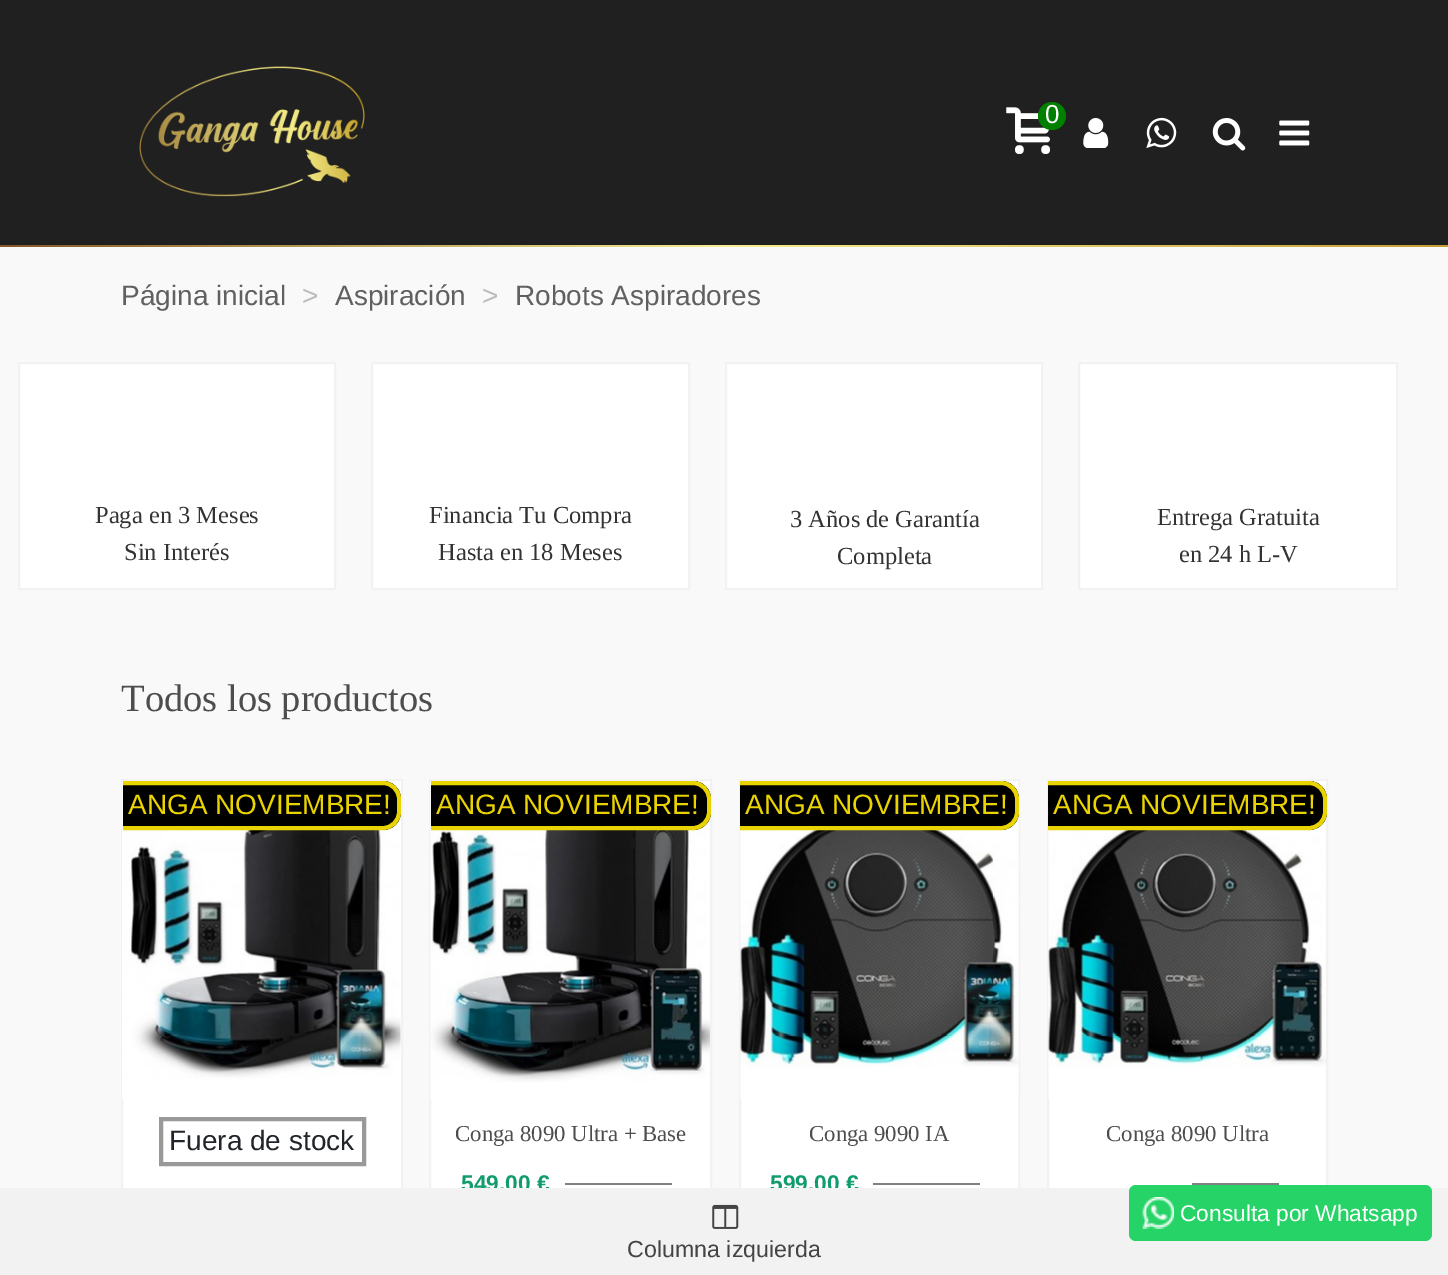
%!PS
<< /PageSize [1448 1275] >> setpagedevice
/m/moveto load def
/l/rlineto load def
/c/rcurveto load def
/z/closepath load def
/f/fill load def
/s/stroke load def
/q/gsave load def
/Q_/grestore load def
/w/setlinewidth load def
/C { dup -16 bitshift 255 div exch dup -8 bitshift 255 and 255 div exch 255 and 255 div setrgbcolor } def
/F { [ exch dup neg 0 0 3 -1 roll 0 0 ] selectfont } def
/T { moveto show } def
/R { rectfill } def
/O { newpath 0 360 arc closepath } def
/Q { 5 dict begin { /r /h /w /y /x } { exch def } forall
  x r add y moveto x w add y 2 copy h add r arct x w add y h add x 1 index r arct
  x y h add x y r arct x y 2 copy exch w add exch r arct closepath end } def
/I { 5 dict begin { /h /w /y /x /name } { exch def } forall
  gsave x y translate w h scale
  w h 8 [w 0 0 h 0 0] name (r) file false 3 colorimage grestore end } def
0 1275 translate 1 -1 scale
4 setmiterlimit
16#F9F9F9 C
0 0 1448 1275 R
16#202020 C
0 0 1448 245 R
(1.rgb) 139 66 226 131 I
(2.rgb) 1006 107 44 47 I
16#008000 C
1052 116 14 O f
/LiberationSans-Regular 26 F
16#FFFFFF C
(0) 1045 123 T
(3.rgb) 1083 118 26 30 I
(4.rgb) 1146 117 31 31 I
(5.rgb) 1212 118 34 33 I
(6.rgb) 1279 120 31 26 I
q 0 245 m 1448 0 l 0 2 l -1448 0 l z clip newpath
<< /ShadingType 2 /ColorSpace /DeviceRGB /Coords [-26 246 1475 246] /Extend [true true] /Function << /FunctionType 3 /Domain [0 1] /Functions [<< /FunctionType 2 /Domain [0 1] /C0 [.502 .325 .129] /C1 [.965 .933 .569] /N 1 >> << /FunctionType 2 /Domain [0 1] /C0 [.965 .933 .569] /C1 [.765 .604 .176] /N 1 >>] /Bounds [.5] /Encode [0 1 0 1] >> >> shfill Q_
/LiberationSans-Regular 28 F
16#606060 C
(Página inicial) 121 305 T
16#BBBBBB C
(>) 302 305 T
16#606060 C
(Aspiración) 335 305 T
16#BBBBBB C
(>) 482 305 T
16#606060 C
(Robots Aspiradores) 515 305 T
16#FFFFFF C
19 363 m 316 0 l 0 226 l -316 0 l z q f Q_
16#F2F2F2 C
2 w
s
/LiberationSerif-Regular 24.5 F
16#333333 C
(Paga en 3 Meses) 95 523 T
(Sin Interés) 124 560 T
16#FFFFFF C
372 363 m 317 0 l 0 226 l -317 0 l z q f Q_
16#F2F2F2 C
s
16#333333 C
(Financia Tu Compra) 429 523 T
(Hasta en 18 Meses) 438 560 T
16#FFFFFF C
726 363 m 316 0 l 0 226 l -316 0 l z q f Q_
16#F2F2F2 C
s
16#333333 C
(3 Años de Garantía) 790 527 T
(Completa) 837 564 T
16#FFFFFF C
1079 363 m 318 0 l 0 226 l -318 0 l z q f Q_
16#F2F2F2 C
s
16#333333 C
(Entrega Gratuita) 1157 525 T
(en 24 h L-V) 1179 562 T
/LiberationSerif-Regular 38.5 F
16#4D4D4D C
(Todos los productos) 121 711 T
16#FFFFFF C
123 781 278 407 R
16#F2F2F2 C
122 780 280 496 rectstroke
(7.rgb) 122 781 279 318 I
16#000000 C
123 781 m 260 0 l 10 0 18 8 18 18 c 0 13 l 0 10 -8 18 -18 18 c -260 0 l z f
q
123 781 278 318 rectclip
16#E9D300 C
4 w
88 783 311 45 16 Q s
Q_
/LiberationSans-Regular 28 F
16#E9D300 C
(ANGA NOVIEMBRE!) 128 814 T
16#999999 C
4 w
161 1119 203 45 rectstroke
16#212529 C
(Fuera de stock) 169 1150 T
16#FFFFFF C
431 1098 279 90 R
16#F2F2F2 C
2 w
430 780 281 442 rectstroke
(8.rgb) 430 781 280 318 I
16#000000 C
431 781 m 262 0 l 10 0 18 8 18 18 c 0 13 l 0 10 -8 18 -18 18 c -262 0 l z f
q
431 781 280 318 rectclip
16#E9D300 C
4 w
396 783 313 45 16 Q s
Q_
16#E9D300 C
(ANGA NOVIEMBRE!) 436 814 T
/LiberationSerif-Regular 22.75 F
16#4D4D4D C
(Conga 8090 Ultra + Base) 455 1141 T
/LiberationSans-Bold 22.75 F
16#119C6E C
(549,00 €) 461 1191 T
16#808080 C
565 1183 107 2 R
16#FFFFFF C
741 1098 277 90 R
16#F2F2F2 C
740 780 279 442 rectstroke
(9.rgb) 740 781 279 318 I
16#000000 C
740 781 m 261 0 l 10 0 18 8 18 18 c 0 13 l 0 10 -8 18 -18 18 c -261 0 l z f
q
740 781 279 318 rectclip
16#E9D300 C
4 w
706 783 311 45 16 Q s
Q_
/LiberationSans-Regular 28 F
16#E9D300 C
(ANGA NOVIEMBRE!) 745 814 T
/LiberationSerif-Regular 22.75 F
16#4D4D4D C
(Conga 9090 IA) 809 1141 T
/LiberationSans-Bold 22.75 F
16#119C6E C
(599,00 €) 770 1191 T
16#808080 C
873 1183 107 2 R
16#FFFFFF C
1049 1098 277 90 R
16#F2F2F2 C
1048 780 279 442 rectstroke
(10.rgb) 1048 781 278 318 I
16#000000 C
1048 781 m 261 0 l 10 0 18 8 18 18 c 0 13 l 0 10 -8 18 -18 18 c -261 0 l z f
q
1048 781 279 318 rectclip
16#E9D300 C
4 w
1014 783 311 45 16 Q s
Q_
/LiberationSans-Regular 28 F
16#E9D300 C
(ANGA NOVIEMBRE!) 1053 814 T
/LiberationSerif-Regular 22.75 F
16#4D4D4D C
(Conga 8090 Ultra) 1106 1141 T
16#808080 C
1192 1183 87 2 R
16#F2F2F2 C
0 1188 1448 87 R
(11.rgb) 712 1204 27 25 I
/LiberationSans-Regular 23.25 F
16#444444 C
(Columna izquierda) 627 1257 T
16#25D366 C
1129 1185 303 56 7 Q f
(12.rgb) 1142 1197 32 32 I
/LiberationSans-Regular 22.75 F
16#FFFFFF C
(Consulta por Whatsapp) 1180 1221 T
showpage
